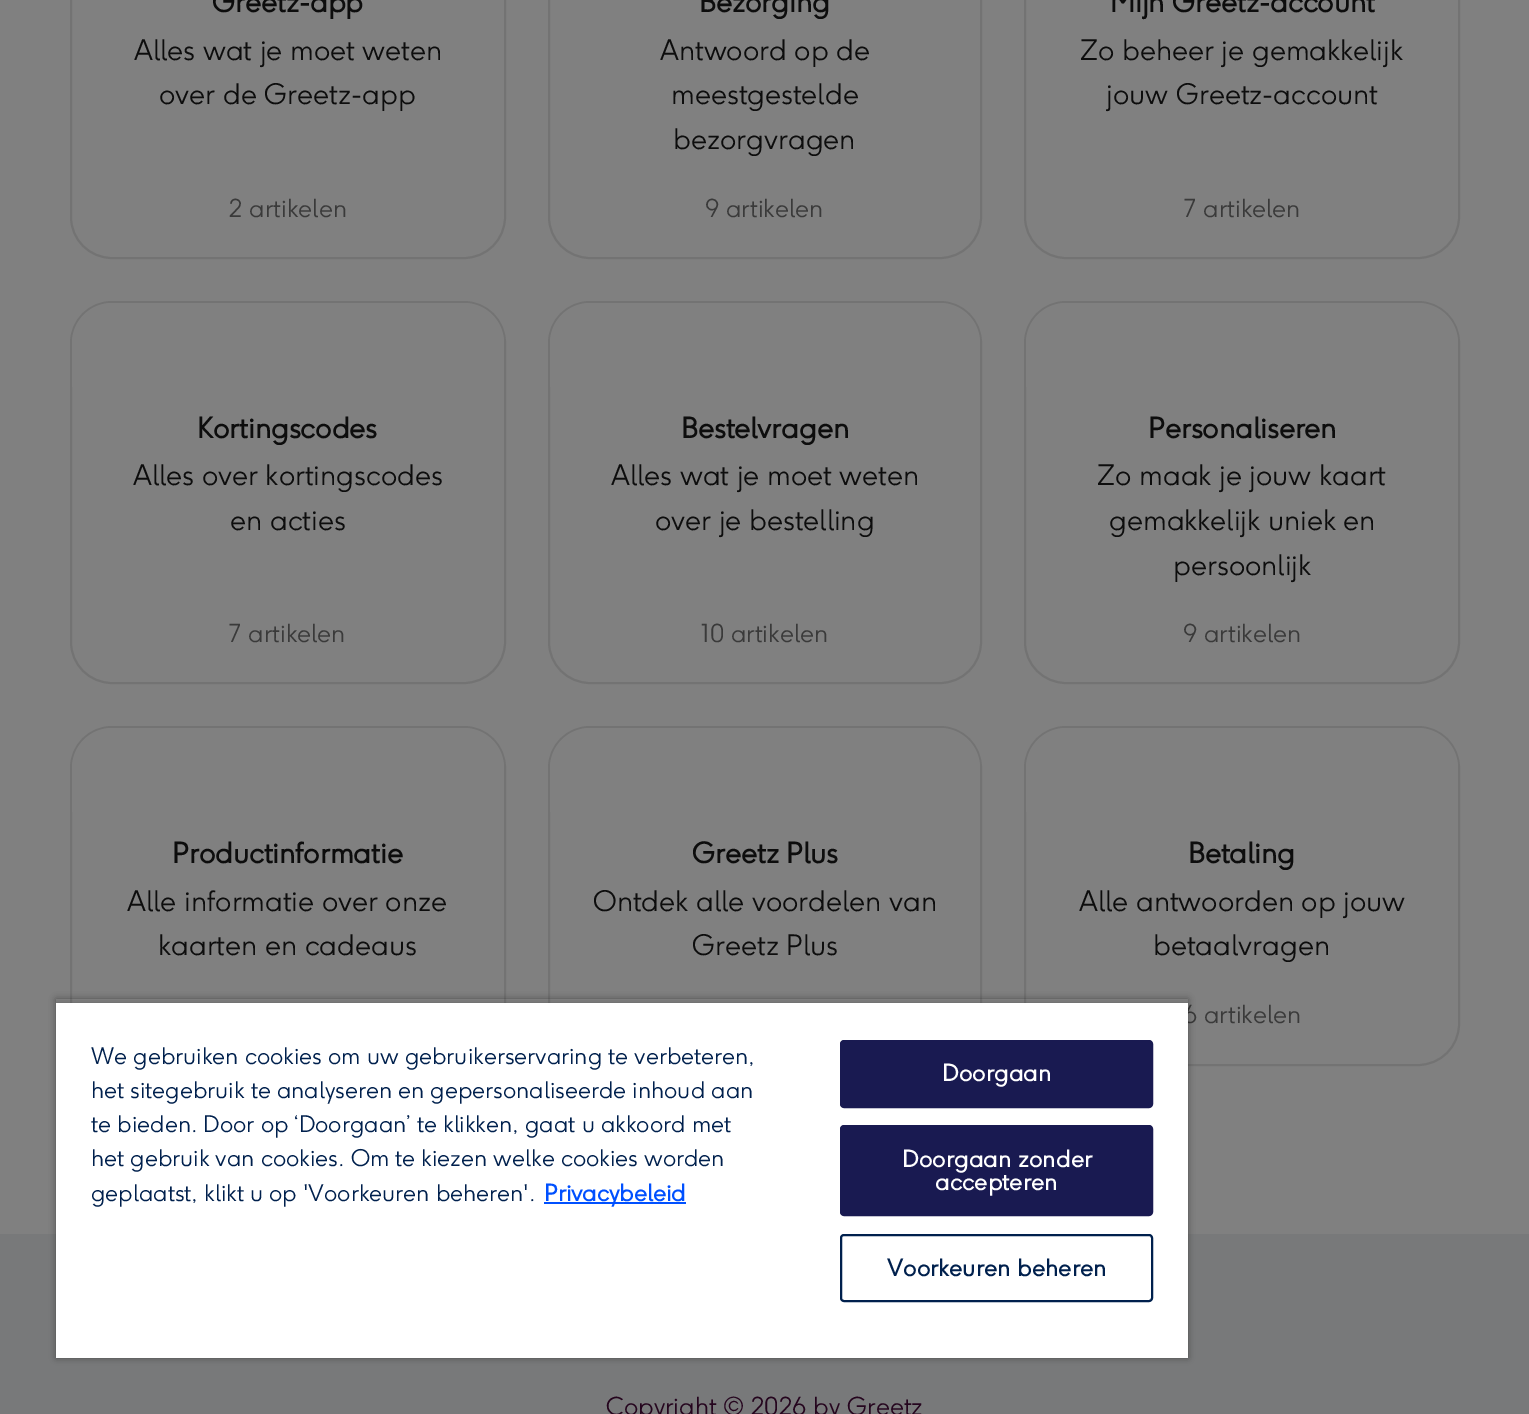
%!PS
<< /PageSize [1529 1414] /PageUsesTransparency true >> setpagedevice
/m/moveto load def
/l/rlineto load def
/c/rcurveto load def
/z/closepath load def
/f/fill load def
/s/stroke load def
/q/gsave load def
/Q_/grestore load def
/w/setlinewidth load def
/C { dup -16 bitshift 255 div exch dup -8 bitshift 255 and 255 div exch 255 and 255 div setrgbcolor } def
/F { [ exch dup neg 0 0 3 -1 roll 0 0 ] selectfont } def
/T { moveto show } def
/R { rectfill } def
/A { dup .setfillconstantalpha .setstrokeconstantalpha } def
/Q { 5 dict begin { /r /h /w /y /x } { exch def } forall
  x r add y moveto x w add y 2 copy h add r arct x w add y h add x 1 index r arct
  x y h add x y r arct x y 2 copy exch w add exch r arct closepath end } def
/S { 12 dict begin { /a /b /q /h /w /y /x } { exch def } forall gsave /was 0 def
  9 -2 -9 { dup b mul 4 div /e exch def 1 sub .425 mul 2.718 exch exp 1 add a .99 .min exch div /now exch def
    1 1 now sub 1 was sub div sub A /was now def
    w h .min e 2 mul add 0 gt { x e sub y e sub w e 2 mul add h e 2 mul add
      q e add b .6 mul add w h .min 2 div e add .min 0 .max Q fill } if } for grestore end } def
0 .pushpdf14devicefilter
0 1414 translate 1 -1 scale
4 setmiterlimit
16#808080 C
0 0 1529 1414 R
16#737373 C
2 w
71 -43 434 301 41 Q s
/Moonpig-Bold 28 F
16#0D0D0D C
(Greetz-app) 212 12 T
/Moonpig-Light 28 F
(Alles wat je moet weten) 134 60 T
(over de Greetz-app) 159 104 T
/Moonpig-Light 24.5 F
16#3A3A3A C
(2 artikelen) 229 217 T
16#737373 C
549 -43 432 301 41 Q s
/Moonpig-Bold 28 F
16#0D0D0D C
(Bezorging) 699 12 T
/Moonpig-Light 28 F
(Antwoord op de) 660 60 T
(meestgestelde) 671 104 T
(bezorgvragen) 673 149 T
/Moonpig-Light 24.5 F
16#3A3A3A C
(9 artikelen) 705 217 T
16#737373 C
1025 -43 434 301 41 Q s
/Moonpig-Bold 28 F
16#0D0D0D C
(Mijn Greetz-account) 1110 12 T
/Moonpig-Light 28 F
(Zo beheer je gemakkelijk) 1080 60 T
(jouw Greetz-account) 1106 104 T
/Moonpig-Light 24.5 F
16#3A3A3A C
(7 artikelen) 1184 217 T
16#737373 C
71 302 434 381 41 Q s
16#808080 C
112 303 m 352 0 l 22 0 40 18 40 40 c 0 44 l -432 0 l 0 -44 l 0 -22 18 -40 40 -40 c z f
/Moonpig-Bold 28 F
16#0D0D0D C
(Kortingscodes) 197 438 T
/Moonpig-Light 28 F
(Alles over kortingscodes) 133 485 T
(en acties) 230 530 T
/Moonpig-Light 24.5 F
16#3A3A3A C
(7 artikelen) 229 642 T
16#737373 C
549 302 432 381 41 Q s
16#808080 C
590 303 m 350 0 l 22 0 40 18 40 40 c 0 44 l -430 0 l 0 -44 l 0 -22 18 -40 40 -40 c z f
/Moonpig-Bold 28 F
16#0D0D0D C
(Bestelvragen) 681 438 T
/Moonpig-Light 28 F
(Alles wat je moet weten) 611 485 T
(over je bestelling) 655 530 T
/Moonpig-Light 24.5 F
16#3A3A3A C
(10 artikelen) 701 642 T
16#737373 C
1025 302 434 381 41 Q s
16#808080 C
1066 303 m 352 0 l 22 0 40 18 40 40 c 0 44 l -432 0 l 0 -44 l 0 -22 18 -40 40 -40 c z f
/Moonpig-Bold 28 F
16#0D0D0D C
(Personaliseren) 1148 438 T
/Moonpig-Light 28 F
(Zo maak je jouw kaart) 1097 485 T
(gemakkelijk uniek en) 1109 530 T
(persoonlijk) 1173 575 T
/Moonpig-Light 24.5 F
16#3A3A3A C
(9 artikelen) 1183 642 T
16#737373 C
71 727 434 338 41 Q s
16#808080 C
112 728 m 352 0 l 22 0 40 18 40 40 c 0 44 l -432 0 l 0 -44 l 0 -22 18 -40 40 -40 c z f
/Moonpig-Bold 28 F
16#0D0D0D C
(Productinformatie) 172 863 T
/Moonpig-Light 28 F
(Alle informatie over onze) 127 911 T
(kaarten en cadeaus) 158 955 T
16#737373 C
549 727 432 338 41 Q s
16#808080 C
590 728 m 350 0 l 22 0 40 18 40 40 c 0 44 l -430 0 l 0 -44 l 0 -22 18 -40 40 -40 c z f
/Moonpig-Bold 28 F
16#0D0D0D C
(Greetz Plus) 692 863 T
/Moonpig-Light 28 F
(Ontdek alle voordelen van) 593 911 T
(Greetz Plus) 692 955 T
16#737373 C
1025 727 434 338 41 Q s
16#808080 C
1066 728 m 352 0 l 22 0 40 18 40 40 c 0 44 l -432 0 l 0 -44 l 0 -22 18 -40 40 -40 c z f
/Moonpig-Bold 28 F
16#0D0D0D C
(Betaling) 1188 863 T
/Moonpig-Light 28 F
(Alle antwoorden op jouw) 1079 911 T
(betaalvragen) 1153 955 T
/Moonpig-Light 24.5 F
16#3A3A3A C
(6 artikelen) 1183 1023 T
16#78797A C
0 1234 1529 180 R
16#25051E C
(Copyright © 2026 by Greetz) 606 1415 T
q
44 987 m 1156 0 l 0 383 l -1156 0 l z 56 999 m 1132 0 l 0 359 l -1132 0 l z eoclip newpath
16#000000 C
56 999 1132 359 0 3.5 .35 S
Q_
q
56 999 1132 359 rectclip
16#000000 C
56 1003 1132 355 0 3.5 .2 S
Q_
16#FFFFFF C
56 1003 1132 355 R
/Moonpig-Light 22.75 F
16#00204D C
(We gebruiken cookies om uw gebruikerservaring te verbeteren,) 91 1064 T
(het sitegebruik te analyseren en gepersonaliseerde inhoud aan) 91 1098 T
(te bieden. Door op ‘Doorgaan’ te klikken, gaat u akkoord met) 91 1132 T
(het gebruik van cookies. Om te kiezen welke cookies worden) 91 1166 T
(geplaatst, klikt u op 'Voorkeuren beheren'.) 91 1201 T
16#0050FF C
544 1202 142 2 R
/Moonpig-Bold 22.75 F
(Privacybeleid) 544 1201 T
16#191A51 C
841 1041 311 66 3 Q q f Q_
s
16#FFFFFF C
942 1081 m .25 0 (Doorgaan) ashow
16#191A51 C
841 1126 311 89 3 Q q f Q_
s
16#FFFFFF C
902 1167 m .25 0 (Doorgaan zonder) ashow
935 1190 m .25 0 (accepteren) ashow
16#00204D C
841 1235 311 66 3 Q s
887 1276 m .25 0 (Voorkeuren beheren) ashow
.poppdf14devicefilter showpage
